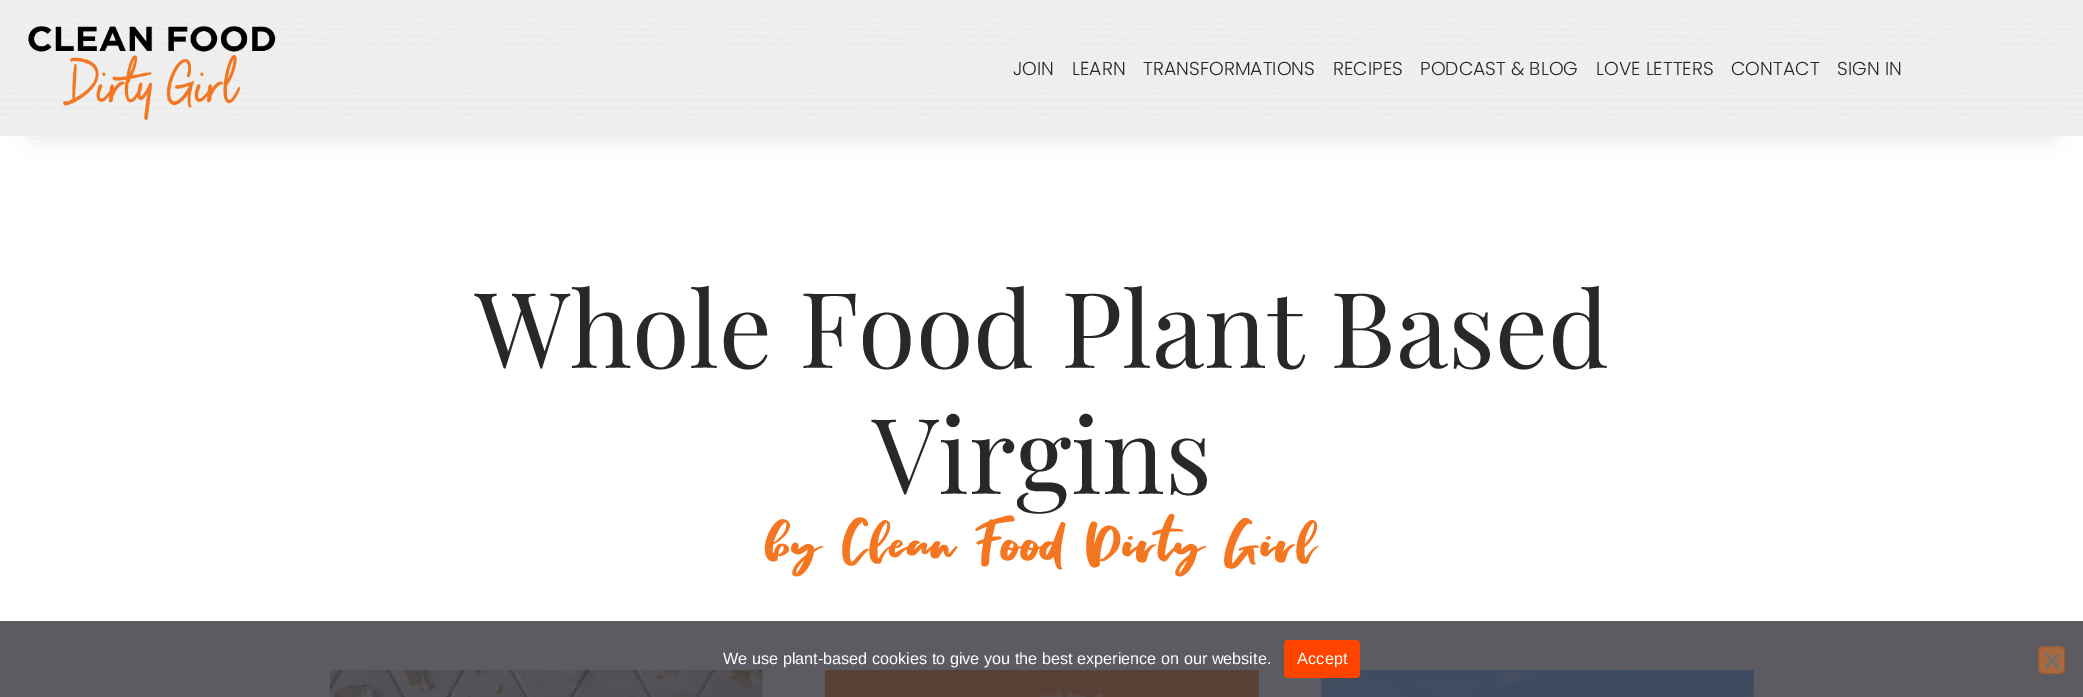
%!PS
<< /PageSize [2083 697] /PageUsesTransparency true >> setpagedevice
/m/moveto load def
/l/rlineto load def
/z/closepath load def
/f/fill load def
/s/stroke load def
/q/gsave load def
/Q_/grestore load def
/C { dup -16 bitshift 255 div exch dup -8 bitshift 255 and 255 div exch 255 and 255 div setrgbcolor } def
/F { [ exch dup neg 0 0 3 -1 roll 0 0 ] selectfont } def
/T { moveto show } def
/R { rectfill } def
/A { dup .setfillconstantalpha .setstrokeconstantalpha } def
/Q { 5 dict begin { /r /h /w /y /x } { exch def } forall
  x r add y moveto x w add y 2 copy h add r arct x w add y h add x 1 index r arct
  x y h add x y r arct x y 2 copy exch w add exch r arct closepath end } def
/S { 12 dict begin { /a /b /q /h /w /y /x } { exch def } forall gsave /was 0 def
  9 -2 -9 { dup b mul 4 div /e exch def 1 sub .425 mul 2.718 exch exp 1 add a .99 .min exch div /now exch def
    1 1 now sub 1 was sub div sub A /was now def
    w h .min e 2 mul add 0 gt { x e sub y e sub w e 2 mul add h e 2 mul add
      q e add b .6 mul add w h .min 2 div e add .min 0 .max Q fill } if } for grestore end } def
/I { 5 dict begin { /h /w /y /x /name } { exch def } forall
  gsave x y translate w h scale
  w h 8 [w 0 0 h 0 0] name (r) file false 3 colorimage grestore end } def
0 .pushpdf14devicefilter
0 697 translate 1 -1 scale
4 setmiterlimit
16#FFFFFF C
0 0 2083 697 R
16#5B5B61 C
0 621 2083 76 R
16#000000 C
30 61 2024 77 0 9.5 .11 S
(1.rgb) 0 0 2083 137 I
(2.rgb) 28 26 248 94 I
/Poppins-Light 18.75 F
16#282828 C
(JOIN) 1013 75 T
(LEARN) 1072 75 T
(TRANSFORMATIONS) 1143 75 T
(RECIPES) 1333 75 T
(PODCAST & BLOG) 1420 75 T
(LOVE LETTERS) 1596 75 T
(CONTACT) 1731 75 T
(SIGN IN) 1837 75 T
/PlayfairDisplay-Regular 105 F
(Whole Food Plant Based) 475 368 T
(Virgins) 872 494 T
/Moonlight-Light 62.5 F
16#F47621 C
(by Clean Food Dirty Girl) 767 566 T
(3.rgb) 330 670 433 27 I
(4.rgb) 825 670 434 27 I
(5.rgb) 1321 670 433 27 I
/LiberationSans-Regular 16.25 F
16#FFFFFF C
(We use plant-based cookies to give you the best experience on our website.) 723 664 T
16#FF4400 C
1284 640 76 38 4 Q f
16#FFFFFF C
1297 664 m .25 0 (Accept) ashow
16#A86941 C
2038.5 646.5 26 27 4.5 Q q f Q_
16#955A36 C
s
16#6E6E71 C
2058 653.5 m 2 1.5 l -13 13.5 l -2 -2 l z f
2045 655 m 2 -1.5 l 13 13 l -2 2 l z f
.poppdf14devicefilter showpage
